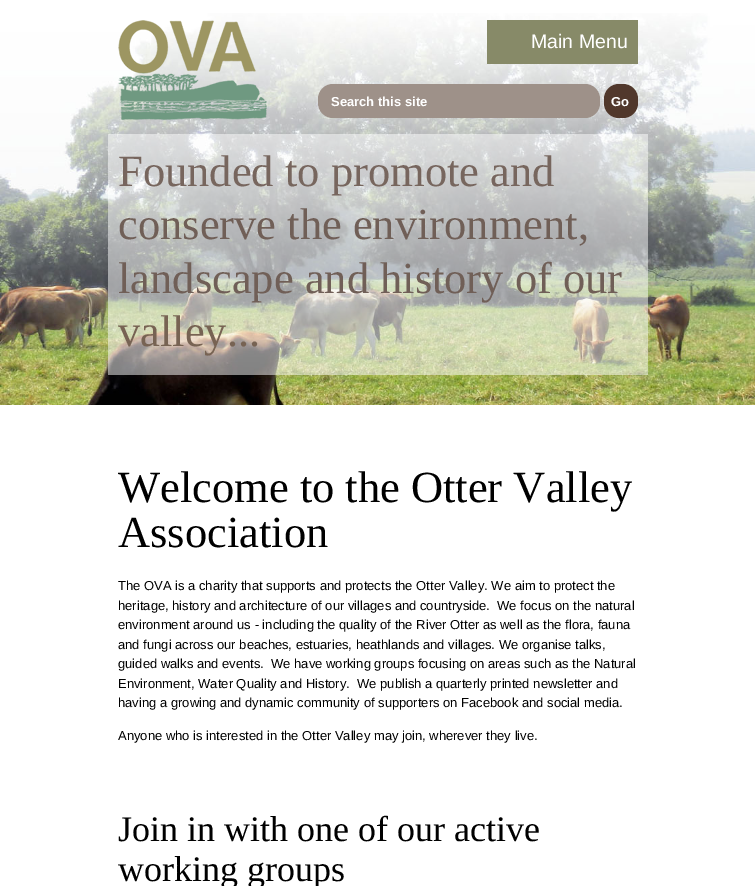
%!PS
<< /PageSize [755 886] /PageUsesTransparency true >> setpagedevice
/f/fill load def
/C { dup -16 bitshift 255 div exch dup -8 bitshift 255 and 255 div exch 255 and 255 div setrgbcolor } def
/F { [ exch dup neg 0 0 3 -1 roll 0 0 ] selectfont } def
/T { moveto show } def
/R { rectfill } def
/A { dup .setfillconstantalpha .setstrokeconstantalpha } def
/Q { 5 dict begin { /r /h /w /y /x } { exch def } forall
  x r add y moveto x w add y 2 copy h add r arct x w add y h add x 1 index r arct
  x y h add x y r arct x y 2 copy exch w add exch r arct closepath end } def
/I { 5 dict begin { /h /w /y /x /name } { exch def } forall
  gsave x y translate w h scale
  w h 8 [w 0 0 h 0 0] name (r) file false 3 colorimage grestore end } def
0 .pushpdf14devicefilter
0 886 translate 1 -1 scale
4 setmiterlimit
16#FFFFFF C
0 0 755 886 R
(2.rgb) 0 13 755 392 I
(1.rgb) 118 20 149 100 I
16#878A68 C
487 20 151 44 R
/LiberationSans-Regular 19.5 F
16#FFFFFF C
(Main Menu) 531 48 T
16#9E9189 C
318 84 282 34 15 Q f
/LiberationSans-Bold 13 F
16#FFFFFF C
(Search this site) 331 106 T
16#51382C C
604 84 34 34 15 Q f
16#FFFFFF C
(Go) 611 106 T
0.5 A
108 134 540 241 R
/LiberationSerif-Regular 44.5 F
1 A
16#77665E C
(Founded to promote and) 118 186 T
16#705F57 C
(conserve the environment,) 118 239 T
(landscape and history of our) 118 293 T
16#776353 C
(valley...) 118 346 T
16#000000 C
(Welcome to the Otter Valley) 118 502 T
(Association) 118 547 T
/LiberationSans-Regular 13 F
(The OVA is a charity that supports and protects the Otter Valley. We aim to protect the) 118 590 T
(heritage, history and architecture of our villages and countryside.  We focus on the natural) 118 610 T
(environment around us - including the quality of the River Otter as well as the flora, fauna) 118 629 T
(and fungi across our beaches, estuaries, heathlands and villages. We organise talks,) 118 649 T
(guided walks and events.  We have working groups focusing on areas such as the Natural) 118 668 T
(Environment, Water Quality and History.  We publish a quarterly printed newsletter and) 118 688 T
(having a growing and dynamic community of supporters on Facebook and social media.) 118 707 T
(Anyone who is interested in the Otter Valley may join, wherever they live.) 118 740 T
/LiberationSerif-Regular 36 F
(Join in with one of our active) 118 841 T
(working groups) 118 881 T
.poppdf14devicefilter showpage
